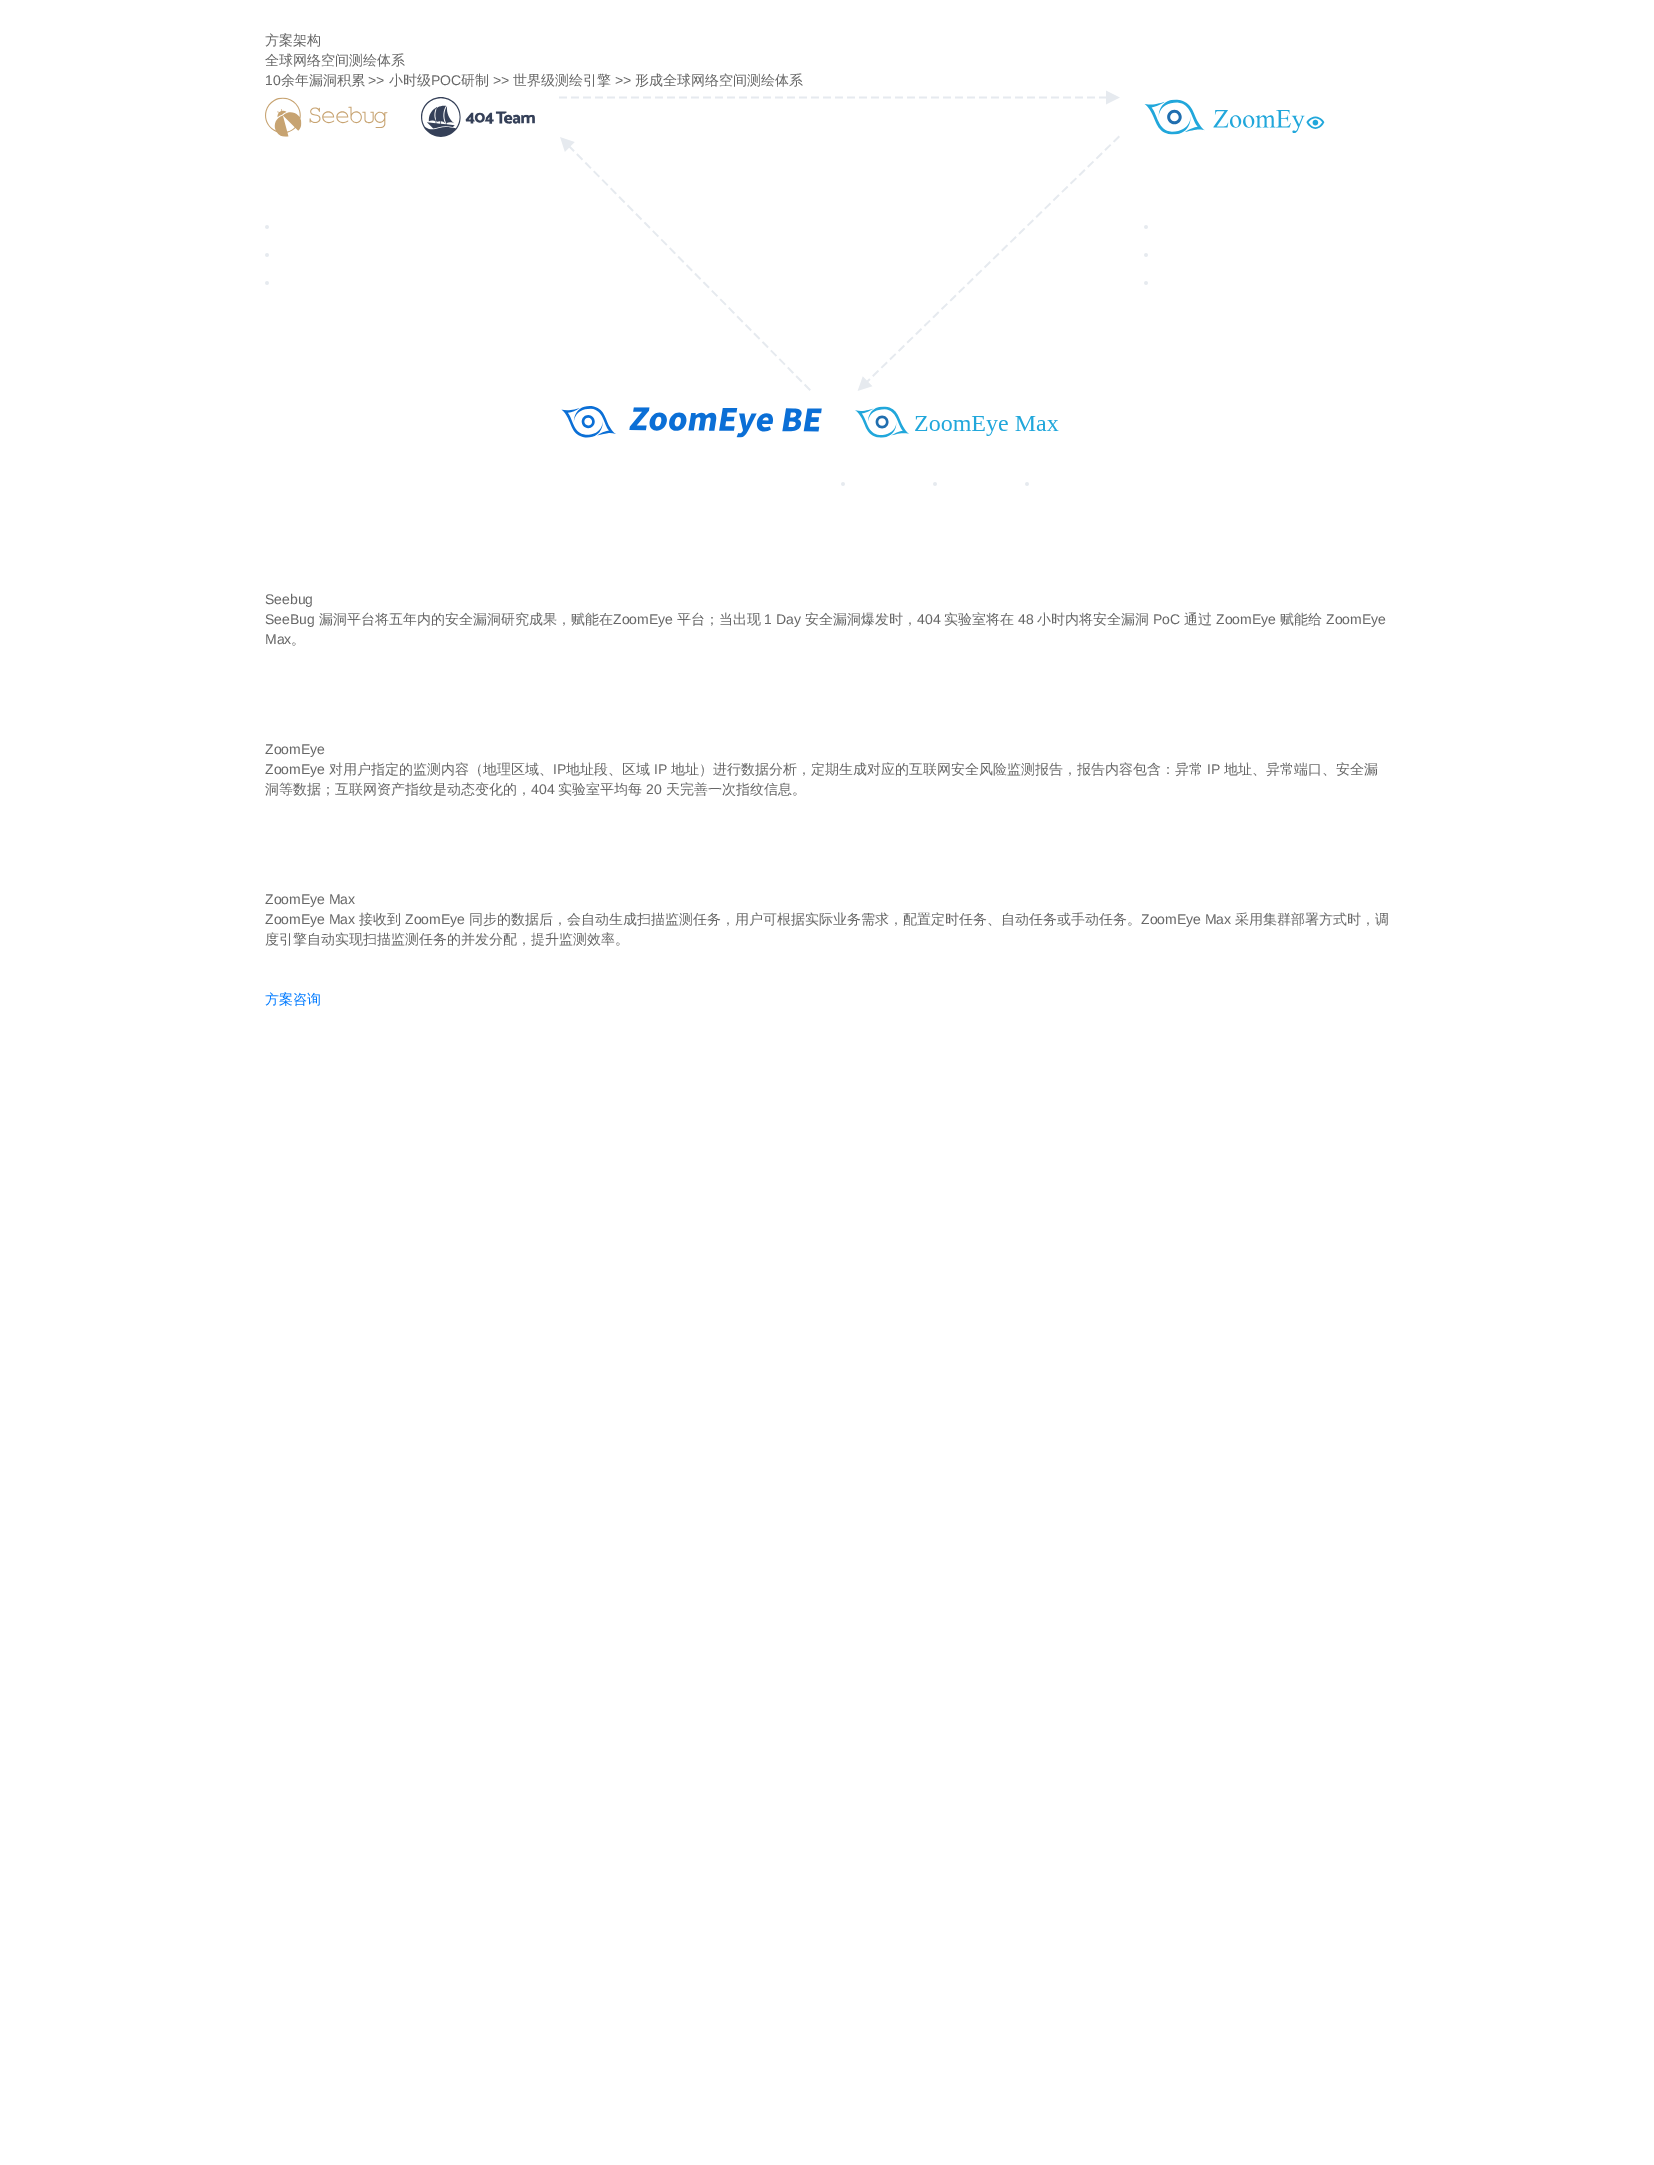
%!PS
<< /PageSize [1654 2165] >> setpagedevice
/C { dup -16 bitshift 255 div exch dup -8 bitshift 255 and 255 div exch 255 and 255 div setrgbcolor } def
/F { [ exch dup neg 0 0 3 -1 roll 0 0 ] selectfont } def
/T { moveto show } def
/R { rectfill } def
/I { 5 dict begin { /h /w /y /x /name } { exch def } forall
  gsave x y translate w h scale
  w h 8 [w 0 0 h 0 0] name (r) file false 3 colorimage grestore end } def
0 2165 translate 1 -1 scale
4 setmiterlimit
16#FFFFFF C
0 0 1654 2165 R
/WenQuanYiZenHei-Medium 14 F
16#666666 C
(方案架构) 265 45 T
(全球网络空间测绘体系) 265 65 T
/LiberationSans-Regular 14 F
(10) 265 85 T
/WenQuanYiZenHei-Medium 14 F
(余年漏洞积累) 281 85 T
/LiberationSans-Regular 14 F
(>>) 368 85 T
/WenQuanYiZenHei-Medium 14 F
(小时级) 389 85 T
/LiberationSans-Regular 14 F
(POC) 431 85 T
/WenQuanYiZenHei-Medium 14 F
(研制) 461 85 T
/LiberationSans-Regular 14 F
(>>) 493 85 T
/WenQuanYiZenHei-Medium 14 F
(世界级测绘引擎) 513 85 T
/LiberationSans-Regular 14 F
(>>) 615 85 T
/WenQuanYiZenHei-Medium 14 F
(形成全球网络空间测绘体系) 635 85 T
(1.rgb) 265 90 1060 396 I
/LiberationSans-Regular 14 F
(Seebug) 265 604 T
(SeeBug) 265 624 T
/WenQuanYiZenHei-Medium 14 F
(漏洞平台将五年内的安全漏洞研究成果，赋能在) 319 624 T
/LiberationSans-Regular 14 F
(ZoomEye) 613 624 T
/WenQuanYiZenHei-Medium 14 F
(平台；当出现) 677 624 T
/LiberationSans-Regular 14 F
(1 Day) 764 624 T
/WenQuanYiZenHei-Medium 14 F
(安全漏洞爆发时，) 805 624 T
/LiberationSans-Regular 14 F
(404) 917 624 T
/WenQuanYiZenHei-Medium 14 F
(实验室将在) 944 624 T
/LiberationSans-Regular 14 F
(48) 1018 624 T
/WenQuanYiZenHei-Medium 14 F
(小时内将安全漏洞) 1037 624 T
/LiberationSans-Regular 14 F
(PoC) 1153 624 T
/WenQuanYiZenHei-Medium 14 F
(通过) 1184 624 T
/LiberationSans-Regular 14 F
(ZoomEye) 1216 624 T
/WenQuanYiZenHei-Medium 14 F
(赋能给) 1280 624 T
/LiberationSans-Regular 14 F
(ZoomEye) 1326 624 T
(Max) 265 644 T
/WenQuanYiZenHei-Medium 14 F
(。) 291 644 T
/LiberationSans-Regular 14 F
(ZoomEye) 265 754 T
(ZoomEye) 265 774 T
/WenQuanYiZenHei-Medium 14 F
(对用户指定的监测内容（地理区域、) 329 774 T
/LiberationSans-Regular 14 F
(IP) 553 774 T
/WenQuanYiZenHei-Medium 14 F
(地址段、区域) 566 774 T
/LiberationSans-Regular 14 F
(IP) 654 774 T
/WenQuanYiZenHei-Medium 14 F
(地址）进行数据分析，定期生成对应的互联网安全风险监测报告，报告内容包含：异常) 671 774 T
/LiberationSans-Regular 14 F
(IP) 1207 774 T
/WenQuanYiZenHei-Medium 14 F
(地址、异常端口、安全漏) 1224 774 T
(洞等数据；互联网资产指纹是动态变化的，) 265 794 T
/LiberationSans-Regular 14 F
(404) 531 794 T
/WenQuanYiZenHei-Medium 14 F
(实验室平均每) 558 794 T
/LiberationSans-Regular 14 F
(20) 646 794 T
/WenQuanYiZenHei-Medium 14 F
(天完善一次指纹信息。) 666 794 T
/LiberationSans-Regular 14 F
(ZoomEye Max) 265 904 T
(ZoomEye Max) 265 924 T
/WenQuanYiZenHei-Medium 14 F
(接收到) 359 924 T
/LiberationSans-Regular 14 F
(ZoomEye) 405 924 T
/WenQuanYiZenHei-Medium 14 F
(同步的数据后，会自动生成扫描监测任务，用户可根据实际业务需求，配置定时任务、自动任务或手动任务。) 469 924 T
/LiberationSans-Regular 14 F
(ZoomEye Max) 1141 924 T
/WenQuanYiZenHei-Medium 14 F
(采用集群部署方式时，调) 1235 924 T
(度引擎自动实现扫描监测任务的并发分配，提升监测效率。) 265 944 T
16#007AFF C
(方案咨询) 265 1004 T
showpage
